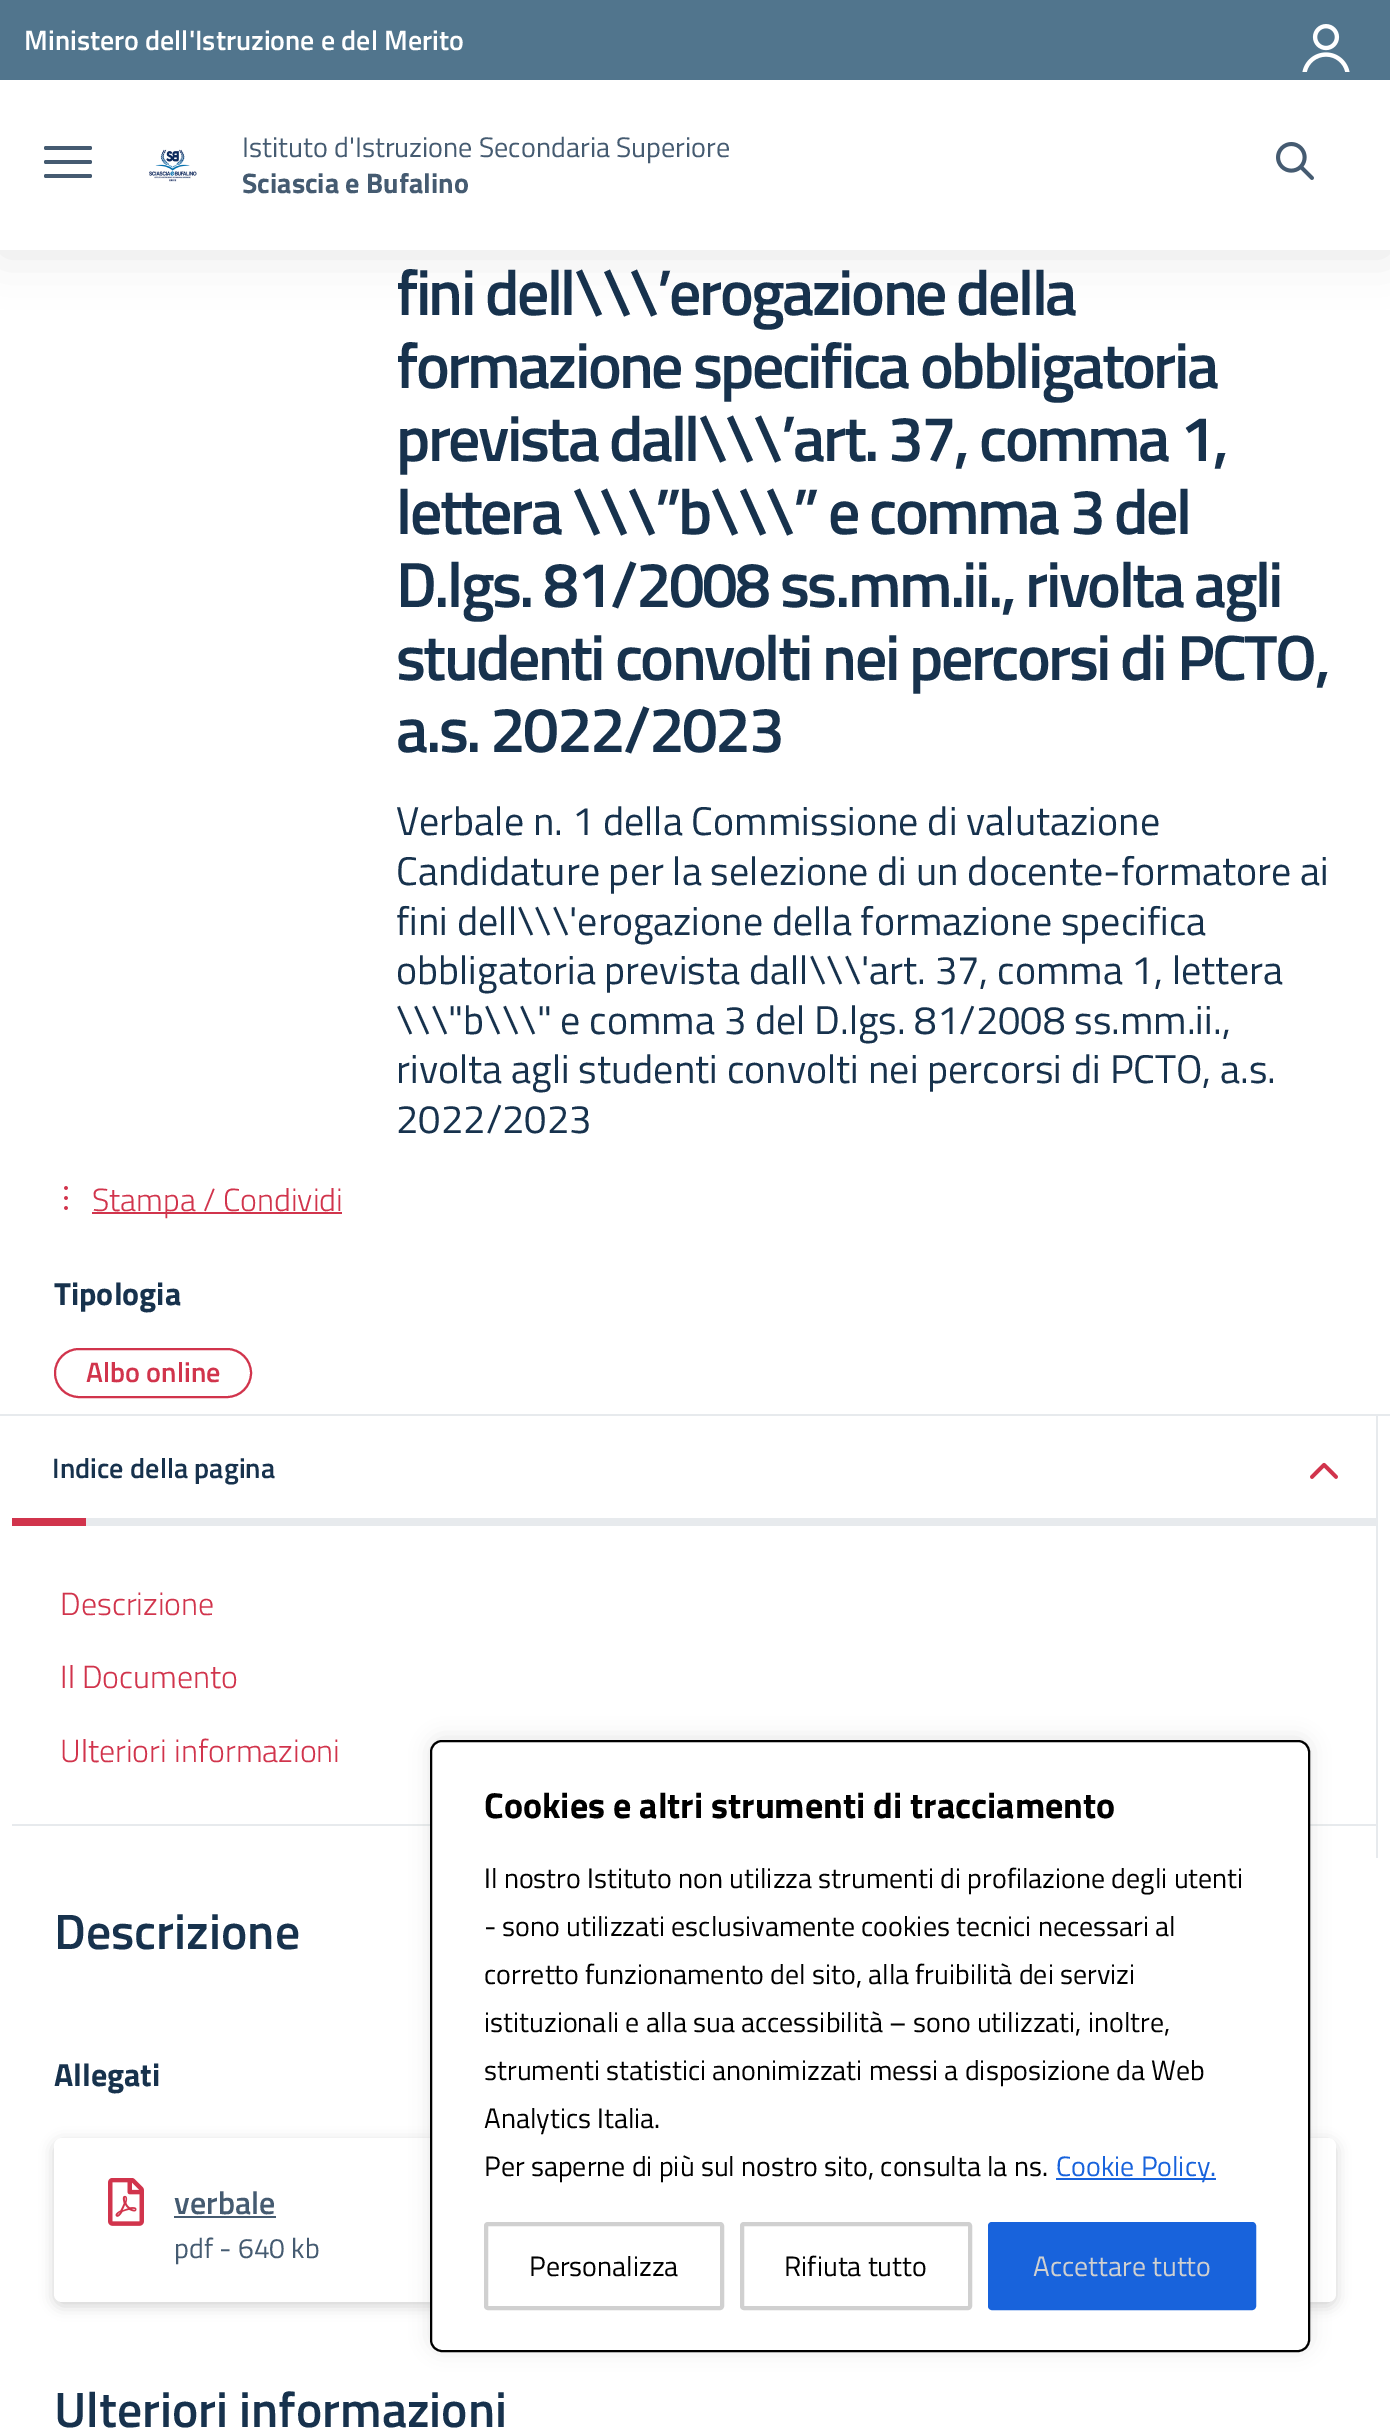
%!PS
<< /PageSize [1390 2431] /PageUsesTransparency true >> setpagedevice
/m/moveto load def
/f/fill load def
/s/stroke load def
/q/gsave load def
/Q_/grestore load def
/w/setlinewidth load def
/C { dup -16 bitshift 255 div exch dup -8 bitshift 255 and 255 div exch 255 and 255 div setrgbcolor } def
/F { [ exch dup neg 0 0 3 -1 roll 0 0 ] selectfont } def
/T { moveto show } def
/R { rectfill } def
/A { dup .setfillconstantalpha .setstrokeconstantalpha } def
/Q { 5 dict begin { /r /h /w /y /x } { exch def } forall
  x r add y moveto x w add y 2 copy h add r arct x w add y h add x 1 index r arct
  x y h add x y r arct x y 2 copy exch w add exch r arct closepath end } def
/S { 12 dict begin { /a /b /q /h /w /y /x } { exch def } forall gsave /was 0 def
  9 -2 -9 { dup b mul 4 div /e exch def 1 sub .425 mul 2.718 exch exp 1 add a .99 .min exch div /now exch def
    1 1 now sub 1 was sub div sub A /was now def
    w h .min e 2 mul add 0 gt { x e sub y e sub w e 2 mul add h e 2 mul add
      q e add b .6 mul add w h .min 2 div e add .min 0 .max Q fill } if } for grestore end } def
/I { 5 dict begin { /h /w /y /x /name } { exch def } forall
  gsave x y translate w h scale
  w h 8 [w 0 0 h 0 0] name (r) file false 3 colorimage grestore end } def
0 .pushpdf14devicefilter
0 2431 translate 1 -1 scale
4 setmiterlimit
16#FFFFFF C
0 0 1390 2431 R
16#000000 C
0 4 1390 250 0 25 .1 S
16#FFFFFF C
0 80 1390 170 R
16#51758D C
0 0 1390 80 R
/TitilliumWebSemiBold-SemiBold 28 F
16#FFFFFF C
(Ministero dell'Istruzione e del Merito) 24 50 T
(1.rgb) 1302 24 48 48 I
16#455B71 C
44 160 48 4 2 Q f
44 146 48 4 2 Q f
44 174 48 4 2 Q f
(2.rgb) 149 149 48 33 I
/TitilliumWeb-Regular 28.2 F
(Istituto d'Istruzione Secondaria Superiore) 242 157 T
/TitilliumWeb-Bold 28.2 F
(Sciascia e Bufalino) 242 193 T
(3.rgb) 1276 142 38 38 I
/TitilliumWebSemiBold-SemiBold 64 F
16#17324D C
396 315 m -2.6 0 (fini dell\\\\\\’erogazione della) ashow
396 388 m -2.6 0 (formazione specifica obbligatoria) ashow
396 461 m -2.6 0 (prevista dall\\\\\\’art. 37, comma 1,) ashow
396 534 m -2.6 0 (lettera \\\\\\”b\\\\\\” e comma 3 del) ashow
396 607 m -2.6 0 (D.lgs. 81/2008 ss.mm.ii., rivolta agli) ashow
396 680 m -2.6 0 (studenti convolti nei percorsi di PCTO,) ashow
396 752 m -2.6 0 (a.s. 2022/2023) ashow
/TitilliumWeb-Regular 40 F
(Verbale n. 1 della Commissione di valutazione) 396 835 T
(Candidature per la selezione di un docente-formatore ai) 396 885 T
(fini dell\\\\\\'erogazione della formazione specifica) 396 935 T
(obbligatoria prevista dall\\\\\\'art. 37, comma 1, lettera) 396 984 T
(\\\\\\"b\\\\\\" e comma 3 del D.lgs. 81/2008 ss.mm.ii.,) 396 1034 T
(rivolta agli studenti convolti nei percorsi di PCTO, a.s.) 396 1083 T
(2022/2023) 396 1133 T
(4.rgb) 64 1186 4 24 I
16#D1344C C
92 1212 250 2 R
/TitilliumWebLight-Light 32 F
(Stampa / Condividi) 92 1211 T
/TitilliumWeb-Bold 32 F
16#17324D C
(Tipologia) 54 1305 T
16#D1344C C
2 w
55 1349 196 48 24 Q s
/TitilliumWebSemiBold-SemiBold 28.2 F
(Albo online) 86 1382 T
16#E7EAED C
0 1414 1390 2 R
16#17324D C
(Indice della pagina) 52 1478 T
(5.rgb) 1310 1462 28 17 I
16#D1344C C
12 1518 74 8 R
16#E7EAED C
86 1518 1292 8 R
12 1824 1366 2 R
/TitilliumWebLight-Light 32 F
16#D1344C C
(Descrizione) 60 1615 T
(Il Documento) 60 1688 T
(Ulteriori informazioni) 60 1762 T
16#E7EAED C
1376 1416 2 442 R
/TitilliumWebSemiBold-SemiBold 49.75 F
16#17324D C
(Descrizione) 54 1949 T
/TitilliumWeb-Bold 32 F
(Allegati) 54 2086 T
16#000000 C
54 2142 1282 164 8 7 .17 S
16#FFFFFF C
54 2138 1282 164 8 Q f
(6.rgb) 108 2178 36 48 I
/TitilliumWebSemiBold-SemiBold 32 F
16#455B71 C
(verbale) 174 2214 T
174 2216 102 2 R
/TitilliumWeb-Regular 28.2 F
(pdf - 640 kb) 174 2258 T
/TitilliumWebSemiBold-SemiBold 49.75 F
16#17324D C
(Ulteriori informazioni) 54 2427 T
16#ACABAB C
430 1738 880 612 12 10 .3 S
16#FFFFFF C
431 1741 878 610 11 Q q f Q_
16#000000 C
s
/TitilliumWeb-Bold 36 F
(Cookies e altri strumenti di tracciamento) 484 1818 T
/TitilliumWeb-Regular 28 F
(Il nostro Istituto non utilizza strumenti di profilazione degli utenti) 484 1888 T
(- sono utilizzati esclusivamente cookies tecnici necessari al) 484 1936 T
(corretto funzionamento del sito, alla fruibilità dei servizi) 484 1984 T
(istituzionali e alla sua accessibilità – sono utilizzati, inoltre,) 484 2032 T
(strumenti statistici anonimizzati messi a disposizione da Web) 484 2080 T
(Analytics Italia.) 484 2128 T
(Per saperne di più sul nostro sito, consulta la ns.) 484 2176 T
16#1863DC C
1056 2178 160 2 R
(Cookie Policy.) 1056 2176 T
16#D0D0D0 C
4 w
486 2224 236 84 2 Q s
16#000000 C
(Personalizza) 529 2276 T
16#D0D0D0 C
742 2224 228 84 2 Q s
16#000000 C
(Rifiuta tutto) 784 2276 T
16#1863DC C
990 2224 264 84 2 Q q f Q_
s
16#D0D0D0 C
(Accettare tutto) 1033 2276 T
.poppdf14devicefilter showpage
